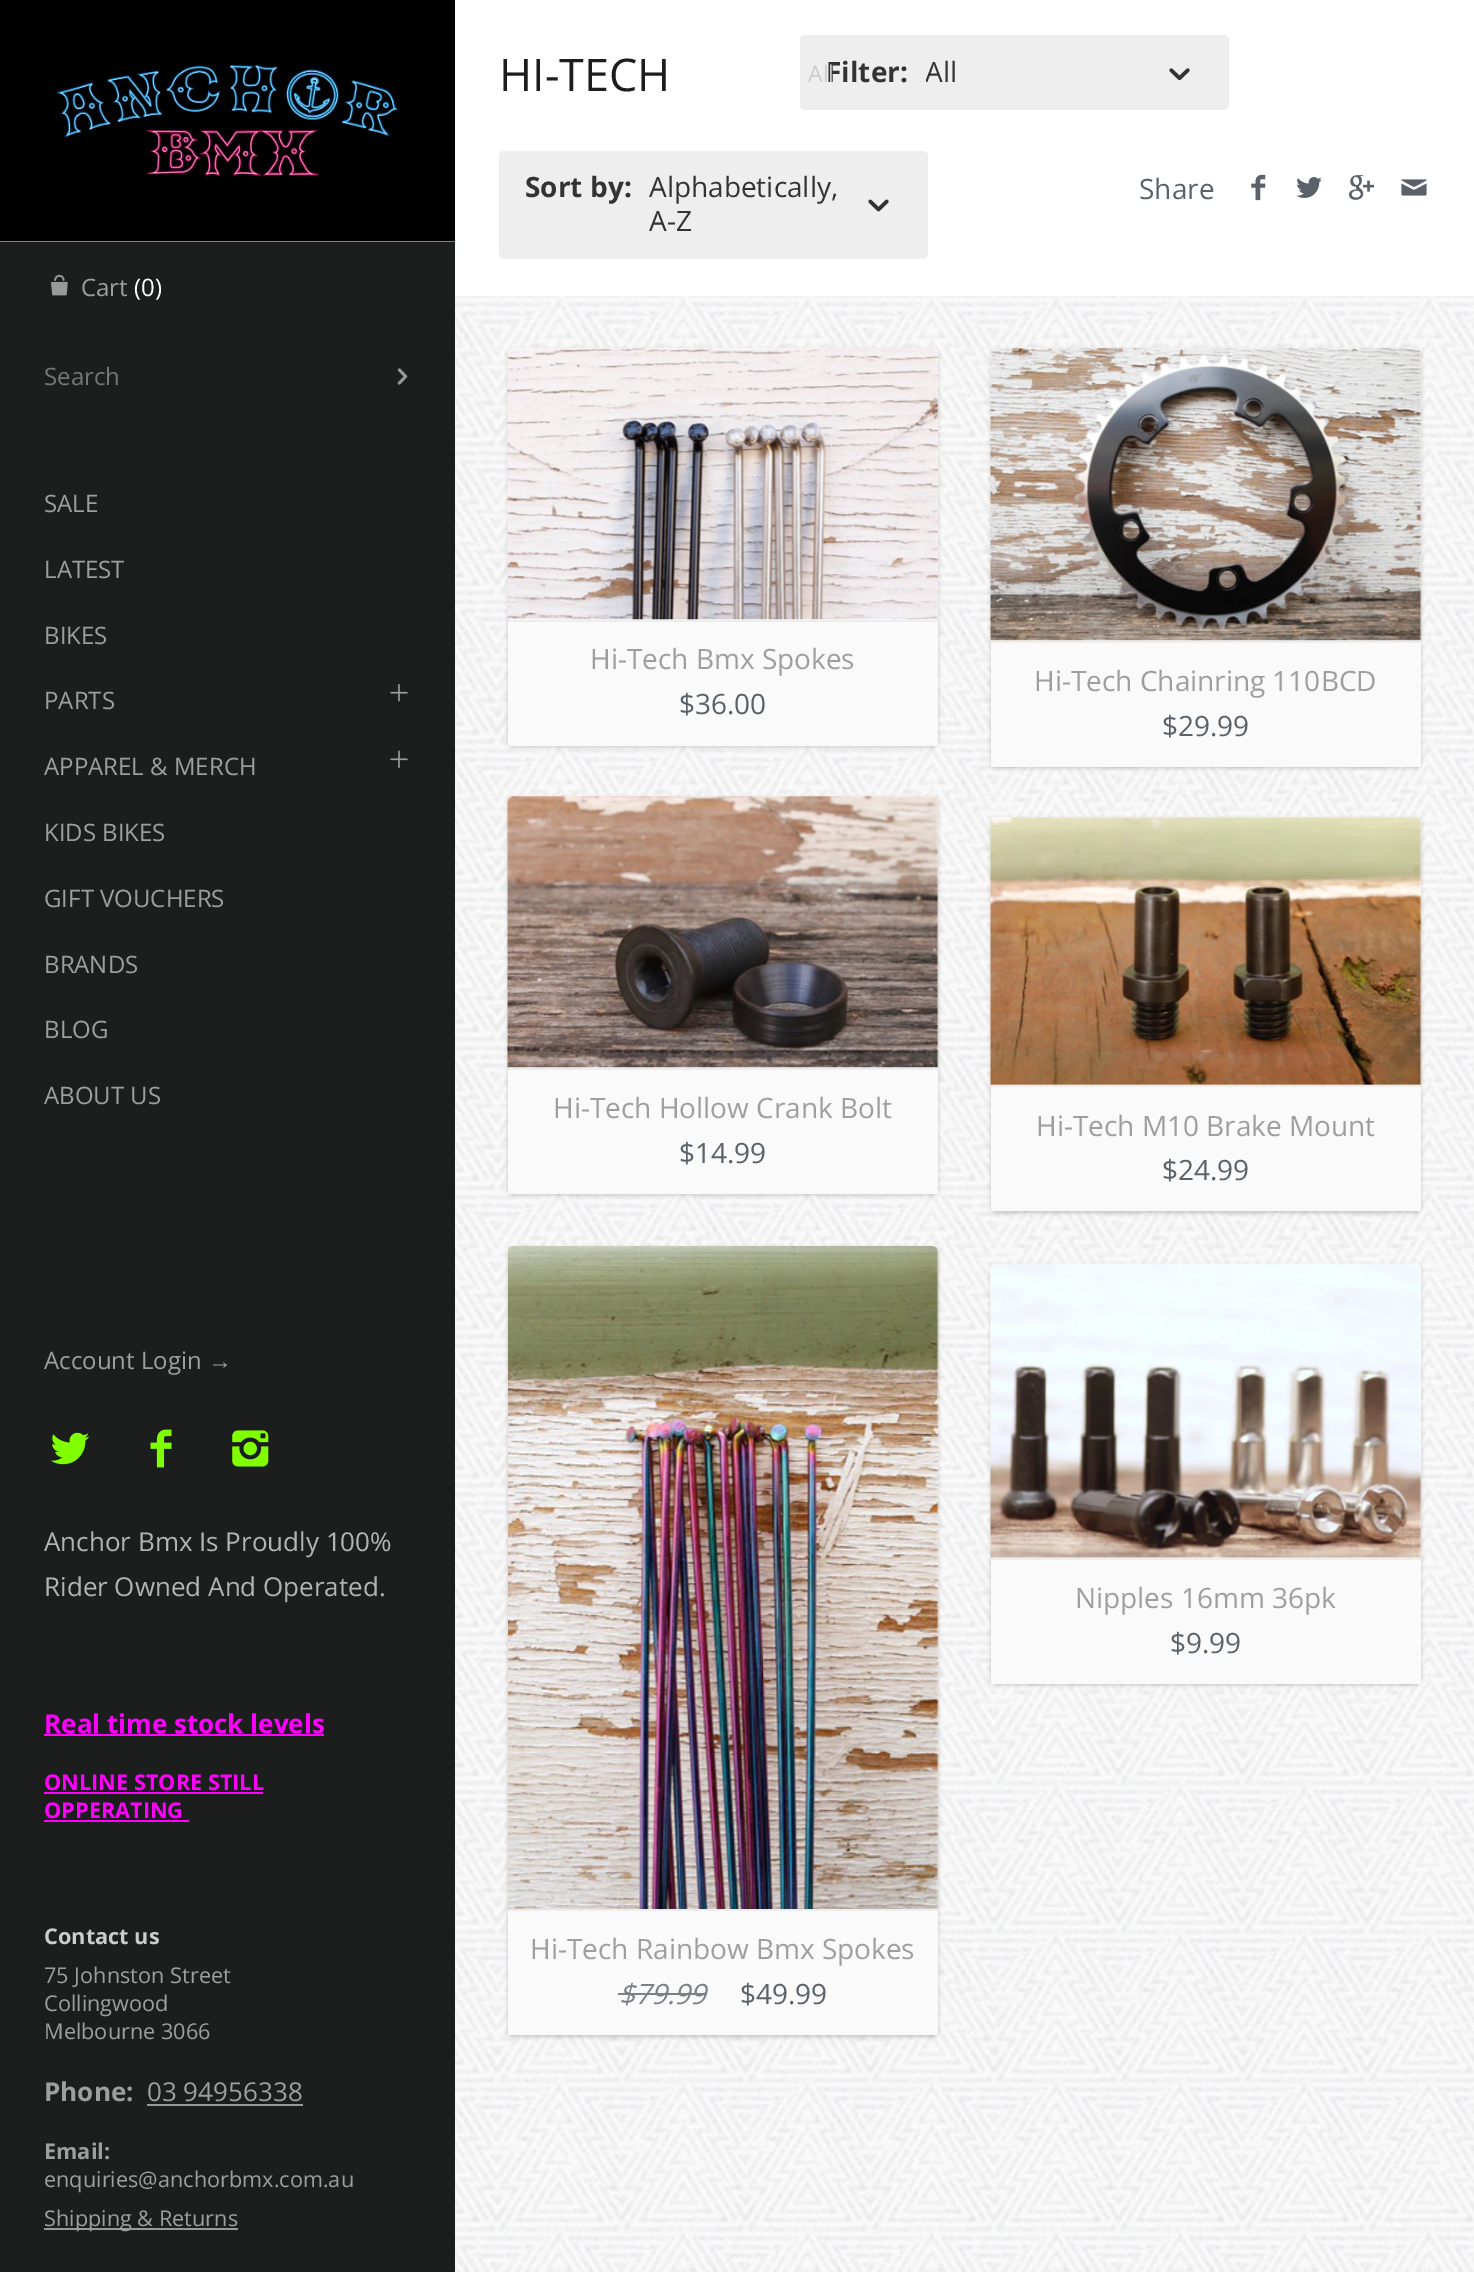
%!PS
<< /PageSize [1474 2272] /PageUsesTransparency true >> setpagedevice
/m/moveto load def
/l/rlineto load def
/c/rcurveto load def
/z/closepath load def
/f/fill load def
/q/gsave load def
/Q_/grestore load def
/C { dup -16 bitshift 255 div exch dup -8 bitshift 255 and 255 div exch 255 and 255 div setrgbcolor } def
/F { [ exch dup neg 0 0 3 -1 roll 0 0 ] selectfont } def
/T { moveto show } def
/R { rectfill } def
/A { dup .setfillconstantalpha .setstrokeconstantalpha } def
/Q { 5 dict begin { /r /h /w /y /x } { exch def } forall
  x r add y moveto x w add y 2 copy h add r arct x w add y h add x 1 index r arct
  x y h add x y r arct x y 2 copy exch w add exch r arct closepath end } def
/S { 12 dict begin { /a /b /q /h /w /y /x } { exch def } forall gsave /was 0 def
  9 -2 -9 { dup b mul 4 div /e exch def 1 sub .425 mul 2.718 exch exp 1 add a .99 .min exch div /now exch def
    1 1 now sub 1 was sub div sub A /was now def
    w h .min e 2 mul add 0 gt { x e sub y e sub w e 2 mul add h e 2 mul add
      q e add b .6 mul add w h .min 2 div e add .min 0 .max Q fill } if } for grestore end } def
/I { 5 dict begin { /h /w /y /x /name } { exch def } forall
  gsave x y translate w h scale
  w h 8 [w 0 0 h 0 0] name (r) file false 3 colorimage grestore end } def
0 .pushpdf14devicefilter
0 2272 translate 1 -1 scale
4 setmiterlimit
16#FFFFFF C
0 0 1474 2272 R
(1.rgb) 455 296 1019 1976 I
16#1C1D1D C
0 242 455 2030 R
(2.rgb) 0 0 455 242 I
(3.rgb) 51 274 17 22 I
/OpenSans-Regular 24 F
16#9E9E9E C
(Cart) 81 296 T
16#FFFFFF C
(\(0\)) 134 296 T
16#757575 C
(Search) 44 385 T
(4.rgb) 397 368 11 17 I
16#9E9E9E C
(SALE) 44 512 T
(LATEST) 44 578 T
(BIKES) 44 644 T
(PARTS) 44 709 T
(5.rgb) 390 684 18 18 I
(APPAREL & MERCH) 44 775 T
(6.rgb) 390 750 18 18 I
(KIDS BIKES) 44 841 T
(GIFT VOUCHERS) 44 907 T
(BRANDS) 44 973 T
(BLOG) 44 1038 T
(ABOUT US) 44 1104 T
(Account Login) 44 1369 T
/LiberationSerif-Regular 24 F
(→) 208 1369 T
(7.rgb) 50 1432 40 33 I
(8.rgb) 150 1429 22 39 I
(9.rgb) 232 1430 37 37 I
/OpenSans-Regular 26 F
16#B3B3B3 C
(Anchor Bmx Is Proudly 100%) 44 1551 T
(Rider Owned And Operated.) 44 1596 T
/OpenSans-Bold 26 F
16#FF00FF C
(Real time stock levels) 44 1733 T
44 1734 280 2 R
/OpenSans-Bold 21.7 F
(ONLINE STORE STILL) 44 1790 T
44 1792 219 2 R
(OPPERATING) 44 1818 T
44 1820 145 2 R
16#CCCCCC C
(Contact us) 44 1944 T
/OpenSans-Regular 21.7 F
16#9E9E9E C
(75 Johnston Street) 44 1983 T
(Collingwood) 44 2011 T
(Melbourne 3066) 44 2039 T
/OpenSans-Bold 26 F
(Phone:) 44 2101 T
/OpenSans-Regular 26 F
(03 94956338) 147 2101 T
16#999999 C
147 2104 156 2 R
/OpenSans-Bold 21.7 F
16#9E9E9E C
(Email:) 44 2159 T
/OpenSans-Regular 21.7 F
(enquiries@anchorbmx.com.au) 44 2187 T
16#999999 C
44 2228 194 2 R
16#9E9E9E C
(Shipping & Returns) 44 2226 T
/OpenSans-Regular 45 F
16#1C1D1D C
(HI-TECH) 499 91 T
16#EEEEEE C
800 35 429 75 5 Q f
/OpenSans-Bold 28 F
16#333333 C
(Filter:) 826 82 T
/OpenSans-Regular 23 F
16#CCCCCC C
(All) 808 82 T
q
926 56 215 33 rectclip
/OpenSans-Regular 28 F
16#333333 C
(All) 925 82 T
Q_
(10.rgb) 1169 68 21 13 I
16#EEEEEE C
499 151 429 108 5 Q f
/OpenSans-Bold 28 F
16#333333 C
(Sort by:) 525 197 T
/OpenSans-Regular 28 F
(Alphabetically,) 649 197 T
(A-Z) 649 231 T
(11.rgb) 868 199 21 13 I
16#5B6169 C
(Share) 1139 199 T
(12.rgb) 1251 174 15 27 I
(13.rgb) 1296 177 26 21 I
(14.rgb) 1349 175 25 25 I
(15.rgb) 1401 179 26 17 I
16#000000 C
508 350 430 397 5 2 .2 S
16#FFFFFF C
508 348 430 398 5 Q f
(16.rgb) 507 348 432 272 I
16#FAFAFA C
508 620 m 430 0 l 0 124 l 0 1 -1 2 -2 2 c -426 0 l -1 0 -2 -1 -2 -2 c z f
16#EDEDED C
508 620 430 2 R
16#9E9E9E C
(Hi-Tech Bmx Spokes) 590 669 T
16#5B6169 C
($36.00) 679 714 T
16#000000 C
991 350 430 418 5 2 .2 S
16#FFFFFF C
991 348 430 419 5 Q f
(17.rgb) 990 348 432 293 I
16#FAFAFA C
991 641 m 430 0 l 0 124 l 0 1 -1 2 -2 2 c -426 0 l -1 0 -2 -1 -2 -2 c z f
16#EDEDED C
991 641 430 2 R
16#9E9E9E C
(Hi-Tech Chainring 110BCD) 1034 691 T
16#5B6169 C
($29.99) 1162 736 T
16#000000 C
508 798 430 397 5 2 .2 S
16#FFFFFF C
508 796 430 398 5 Q f
(18.rgb) 507 796 432 272 I
16#FAFAFA C
508 1068 m 430 0 l 0 124 l 0 1 -1 2 -2 2 c -426 0 l -1 0 -2 -1 -2 -2 c z f
16#EDEDED C
508 1068 430 2 R
16#9E9E9E C
(Hi-Tech Hollow Crank Bolt) 553 1118 T
16#5B6169 C
($14.99) 679 1163 T
16#000000 C
991 819 430 394 5 2 .2 S
16#FFFFFF C
991 817 430 394 5 Q f
(19.rgb) 990 817 432 269 I
16#FAFAFA C
991 1085 m 430 0 l 0 124 l 0 1 -1 2 -2 2 c -426 0 l -1 0 -2 -1 -2 -2 c z f
16#EDEDED C
991 1085 430 2 R
16#9E9E9E C
(Hi-Tech M10 Brake Mount) 1036 1136 T
16#5B6169 C
($24.99) 1162 1180 T
16#000000 C
991 1265 430 420 5 2 .2 S
16#FFFFFF C
991 1264 430 420 5 Q f
(20.rgb) 990 1263 432 295 I
16#FAFAFA C
991 1558 m 430 0 l 0 124 l 0 1 -1 2 -2 2 c -426 0 l -1 0 -2 -1 -2 -2 c z f
16#EDEDED C
991 1558 430 2 R
16#9E9E9E C
(Nipples 16mm 36pk) 1075 1608 T
16#5B6169 C
($9.99) 1170 1653 T
16#000000 C
508 1248 430 789 5 2 .2 S
16#FFFFFF C
508 1246 430 789 5 Q f
(21.rgb) 508 1246 431 663 I
16#FAFAFA C
508 1909 m 430 0 l 0 124 l 0 1 -1 2 -2 2 c -426 0 l -1 0 -2 -1 -2 -2 c z f
16#EDEDED C
508 1909 430 2 R
16#9E9E9E C
(Hi-Tech Rainbow Bmx Spokes) 530 1959 T
/OpenSans-Italic 28 F
16#7B8086 C
($79.99) 619 2004 T
618 1993 87 2 R
/OpenSans-Regular 28 F
16#5B6169 C
($49.99) 740 2004 T
.poppdf14devicefilter showpage
